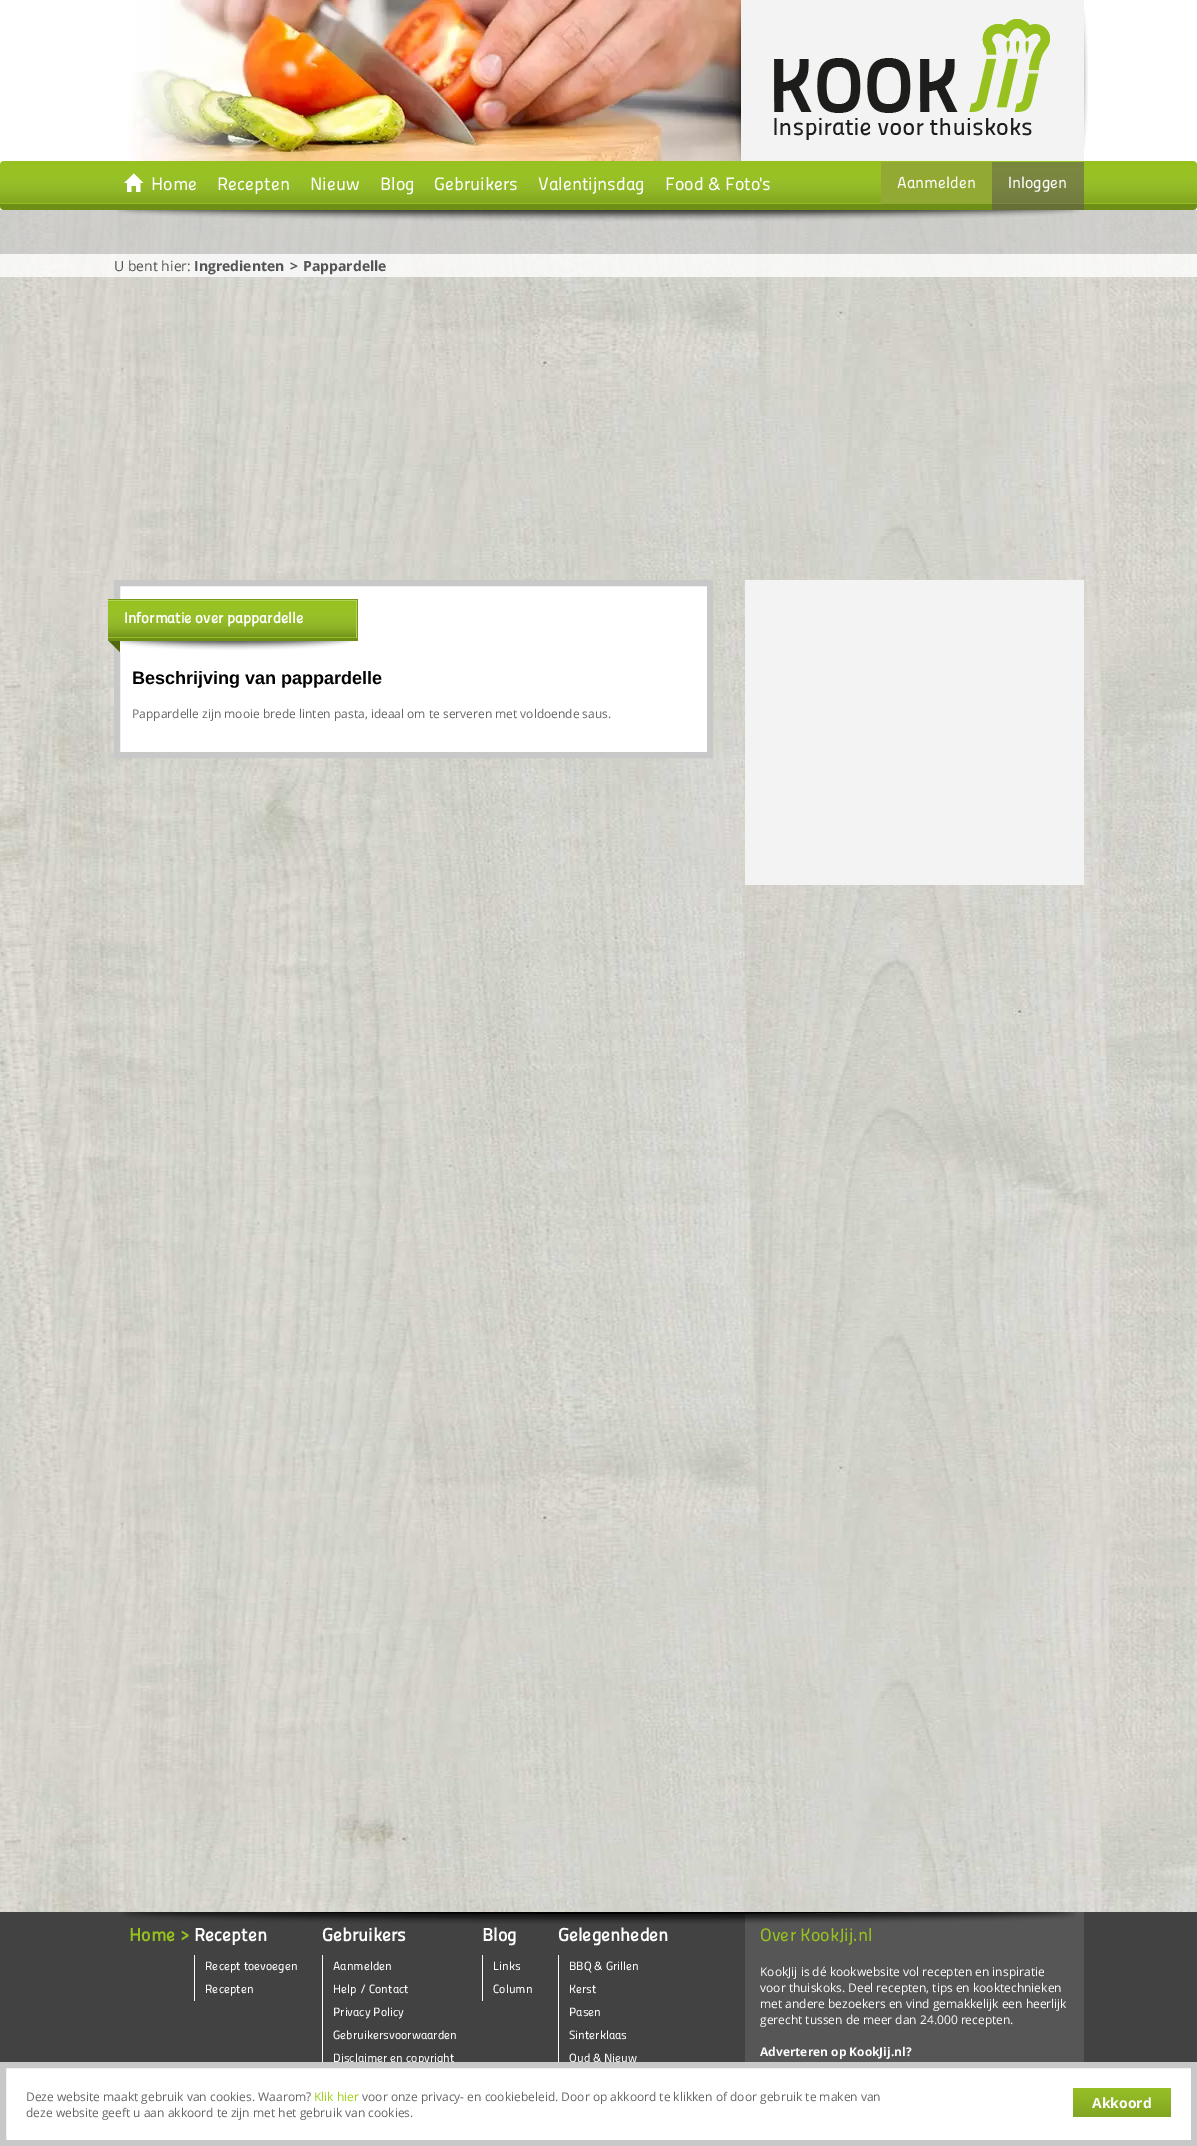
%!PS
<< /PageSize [1197 2146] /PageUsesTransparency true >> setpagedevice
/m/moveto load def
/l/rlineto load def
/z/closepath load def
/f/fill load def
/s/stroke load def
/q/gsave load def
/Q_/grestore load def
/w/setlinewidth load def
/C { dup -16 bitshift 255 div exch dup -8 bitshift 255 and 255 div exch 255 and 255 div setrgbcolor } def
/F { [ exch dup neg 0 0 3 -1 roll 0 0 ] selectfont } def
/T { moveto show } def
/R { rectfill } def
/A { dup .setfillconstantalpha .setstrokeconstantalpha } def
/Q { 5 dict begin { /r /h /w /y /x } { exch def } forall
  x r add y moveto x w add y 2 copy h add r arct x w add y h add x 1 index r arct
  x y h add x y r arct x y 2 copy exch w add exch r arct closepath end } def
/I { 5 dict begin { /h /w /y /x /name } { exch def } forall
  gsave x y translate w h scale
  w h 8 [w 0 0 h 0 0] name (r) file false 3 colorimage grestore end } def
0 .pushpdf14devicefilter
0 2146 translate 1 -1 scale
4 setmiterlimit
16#FFFFFF C
0 0 1197 2146 R
(1.rgb) 0 210 1197 1702 I
(2.rgb) 128 0 613 161 I
(3.rgb) 734 0 7 161 I
16#F3F3F3 C
741 0 343 161 R
(4.rgb) 774 19 276 121 I
(5.rgb) 1084 9 4 140 I
(6.rgb) 0 161 1197 49 I
(7.rgb) 124 173 20 19 I
/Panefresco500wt-Regular 18 F
16#FEFEFE C
(Home) 151 190 T
(Recepten) 217 190 T
(Nieuw) 310 190 T
(Blog) 380 190 T
(Gebruikers) 434 190 T
(Valentijnsdag) 538 190 T
(Food & Foto's) 665 190 T
16#92AA33 C
881 162 111 42 R
/Panefresco500wt-Regular 16 F
16#FEFEFE C
(Aanmelden) 897 188 T
0.55 A
16#615656 C
992 162 92 48 R
1 A
16#FEFEFE C
(Inloggen) 1008 188 T
0.6 A
16#C8C8C8 C
0 210 1197 44 R
1 A
(8.rgb) 117 210 963 11 I
0.8 A
16#FFFFFF C
0 254 1197 23 R
/OpenSans-Regular 14 F
1 A
16#545454 C
(U bent hier:) 114 271 T
16#F5F5F5 C
194 254 192 23 4 Q f
/OpenSans-Bold 14 F
16#545454 C
(Ingredienten) 194 271 T
(>) 290 271 T
(Pappardelle) 303 271 T
16#F3F3F3 C
745 580 339 305 R
16#FFFFFF C
117 583 m 593 0 l 0 172 l -593 0 l z q f Q_
16#C8C8C8 C
6 w
s
(9.rgb) 108 599 250 54 I
/Panefresco500wt-Bold 15 F
16#FEFEFE C
(Informatie over pappardelle) 124 623 T
/LiberationSans-Bold 18 F
16#000000 C
(Beschrijving van pappardelle) 132 684 T
/OpenSans-Regular 12 F
16#656565 C
(Pappardelle zijn mooie brede linten pasta, ideaal om te serveren met voldoende saus.) 132 718 T
16#424242 C
0 1912 1197 150 R
16#575656 C
745 1912 339 150 R
(10.rgb) 121 1912 955 12 I
/Panefresco500wt-Bold 18 F
16#96C11F C
(Home >) 129 1941 T
16#FEFEFE C
(Recepten) 194 1941 T
16#FFFFFF C
194 1955 1 46 R
/Panefresco500wt-Regular 12 F
16#FEFEFE C
(Recept toevoegen) 205 1970 T
(Recepten) 205 1993 T
/Panefresco500wt-Bold 18 F
(Gebruikers) 322 1941 T
16#FFFFFF C
322 1955 1 107 R
/Panefresco500wt-Regular 12 F
16#FEFEFE C
(Aanmelden) 333 1970 T
(Help / Contact) 333 1993 T
(Privacy Policy) 333 2016 T
(Gebruikersvoorwaarden) 333 2039 T
(Disclaimer en copyright) 333 2062 T
/Panefresco500wt-Bold 18 F
(Blog) 482 1941 T
16#FFFFFF C
482 1955 1 46 R
/Panefresco500wt-Regular 12 F
16#FEFEFE C
(Links) 493 1970 T
(Column) 493 1993 T
/Panefresco500wt-Bold 18 F
(Gelegenheden) 558 1941 T
16#FFFFFF C
558 1955 1 107 R
/Panefresco500wt-Regular 12 F
16#FEFEFE C
(BBQ & Grillen) 569 1970 T
(Kerst) 569 1993 T
(Pasen) 569 2016 T
(Sinterklaas) 569 2039 T
(Oud & Nieuw) 569 2062 T
/Panefresco500wt-Regular 18 F
16#96C11F C
(Over KookJij.nl) 760 1941 T
/OpenSans-Regular 12 F
16#FEFEFE C
(KookJij is dé kookwebsite vol recepten en inspiratie) 760 1976 T
(voor thuiskoks. Deel recepten, tips en kooktechnieken) 760 1992 T
(met andere bezoekers en vind gemakkelijk een heerlijk) 760 2008 T
(gerecht tussen de meer dan 24.000 recepten.) 760 2024 T
/OpenSans-Bold 12 F
(Adverteren op KookJij.nl?) 760 2056 T
16#C8C8C8 C
3 2065 1191 78 rectstroke
/OpenSans-Regular 12 F
16#656565 C
(Deze website maakt gebruik van cookies. Waarom?) 26 2101 T
16#9FD018 C
(Klik hier) 314 2101 T
16#656565 C
(voor onze privacy- en cookiebeleid. Door op akkoord te klikken of door gebruik te maken van) 362 2101 T
(deze website geeft u aan akkoord te zijn met het gebruik van cookies.) 26 2117 T
q 1073 2088 m 98 0 l 0 29 l -98 0 l z clip newpath
<< /ShadingType 2 /ColorSpace /DeviceRGB /Coords [1122 2088 1122 2117] /Extend [true true] /Function << /FunctionType 2 /Domain [0 1] /C0 [.592 .753 .153] /C1 [.51 .647 .133] /N 1 >> >> shfill Q_
/OpenSans-Bold 14 F
16#FEFEFE C
(Akkoord) 1092 2108 T
.poppdf14devicefilter showpage
